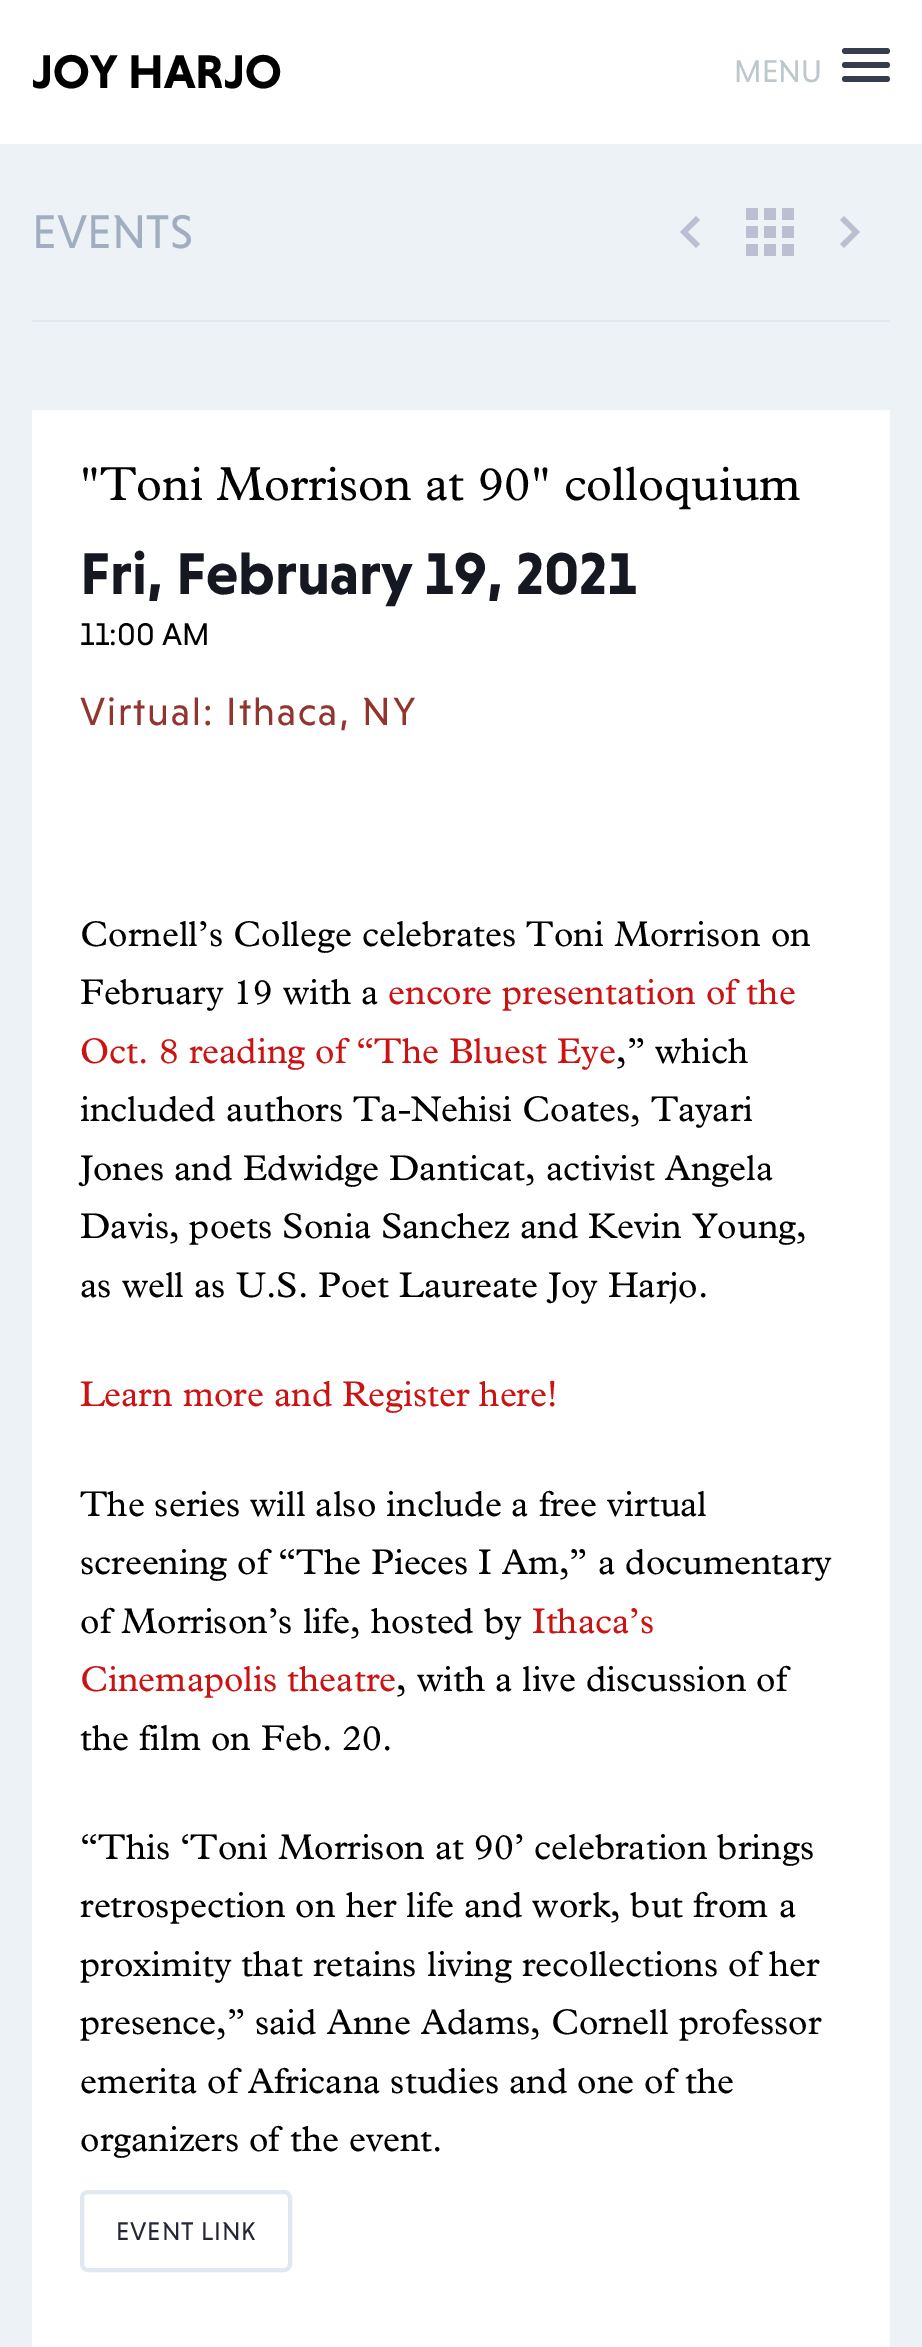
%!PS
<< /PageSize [922 2347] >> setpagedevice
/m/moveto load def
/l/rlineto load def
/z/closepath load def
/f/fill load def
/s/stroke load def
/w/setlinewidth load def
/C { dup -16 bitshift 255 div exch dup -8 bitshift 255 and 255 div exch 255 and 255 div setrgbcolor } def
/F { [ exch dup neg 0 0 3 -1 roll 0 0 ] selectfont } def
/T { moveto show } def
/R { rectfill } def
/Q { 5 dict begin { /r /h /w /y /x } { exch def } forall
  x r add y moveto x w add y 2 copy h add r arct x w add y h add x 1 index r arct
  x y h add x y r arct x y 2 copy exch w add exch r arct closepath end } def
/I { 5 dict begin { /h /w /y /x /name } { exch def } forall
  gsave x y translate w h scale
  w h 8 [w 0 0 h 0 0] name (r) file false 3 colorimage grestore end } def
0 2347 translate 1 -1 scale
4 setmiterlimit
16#FFFFFF C
0 0 922 2347 R
/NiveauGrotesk-Bold 48 F
16#000000 C
(JOY HARJO) 32 88 T
/NiveauGrotesk-Regular 32 F
16#BDC8CC C
(MENU) 734 82 T
16#363E4E C
842 62 48 6 3 Q f
842 48 48 6 3 Q f
842 76 48 6 3 Q f
16#EDF2F7 C
0 144 922 2203 R
16#E2E8F0 C
32 320 858 2 R
/NiveauGrotesk-Regular 48 F
16#A0AEC0 C
(EVENTS) 32 248 T
16#BCBED2 C
700 220 m -4 -4 l -16 16 l 16 16 l 4 -4 l -12.5 -12 l z f
(1.rgb) 746 208 48 48 I
844 216 m -4 4 l 12.5 12 l -12.5 12 l 4 4 l 16 -16 l z f
16#FFFFFF C
32 410 858 1937 R
/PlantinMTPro-Regular 48 F
16#000000 C
("Toni Morrison at 90" colloquium) 80 500 T
/NiveauGrotesk-Bold 60 F
16#151821 C
(Fri, February 19, 2021) 80 594 T
/NiveauGrotesk-Regular 32 F
16#000000 C
(11:00 AM) 80 645 T
/NiveauGrotesk-Regular 40 F
16#92352E C
80 725 m 2 0 (Virtual: Ithaca, NY) ashow
/PlantinMTPro-Regular 36 F
16#000000 C
(Cornell’s College celebrates Toni Morrison on) 80 946 T
(February 19 with a) 80 1004 T
16#CC1313 C
(encore presentation of the) 388 1004 T
(Oct. 8 reading of “The Bluest Eye) 80 1063 T
16#000000 C
(,” which) 616 1063 T
(included authors Ta-Nehisi Coates, Tayari) 80 1121 T
(Jones and Edwidge Danticat, activist Angela) 80 1180 T
(Davis, poets Sonia Sanchez and Kevin Young,) 80 1238 T
(as well as U.S. Poet Laureate Joy Harjo.) 80 1297 T
16#CC1313 C
(Learn more and Register here!) 80 1406 T
16#000000 C
(The series will also include a free virtual) 80 1516 T
(screening of “The Pieces I Am,” a documentary) 80 1574 T
(of Morrison’s life, hosted by) 80 1633 T
16#CC1313 C
(Ithaca’s) 532 1633 T
(Cinemapolis theatre) 80 1691 T
16#000000 C
(, with a live discussion of) 396 1691 T
(the film on Feb. 20.) 80 1750 T
(“This ‘Toni Morrison at 90’ celebration brings) 80 1859 T
(retrospection on her life and work, but from a) 80 1917 T
(proximity that retains living recollections of her) 80 1976 T
(presence,” said Anne Adams, Cornell professor) 80 2034 T
(emerita of Africana studies and one of the) 80 2093 T
(organizers of the event.) 80 2151 T
16#E2E8F0 C
4 w
82 2192 208 78 6 Q s
/NiveauGrotesk-Regular 26 F
16#252736 C
116 2240 m .75 0 (EVENT LINK) ashow
showpage
